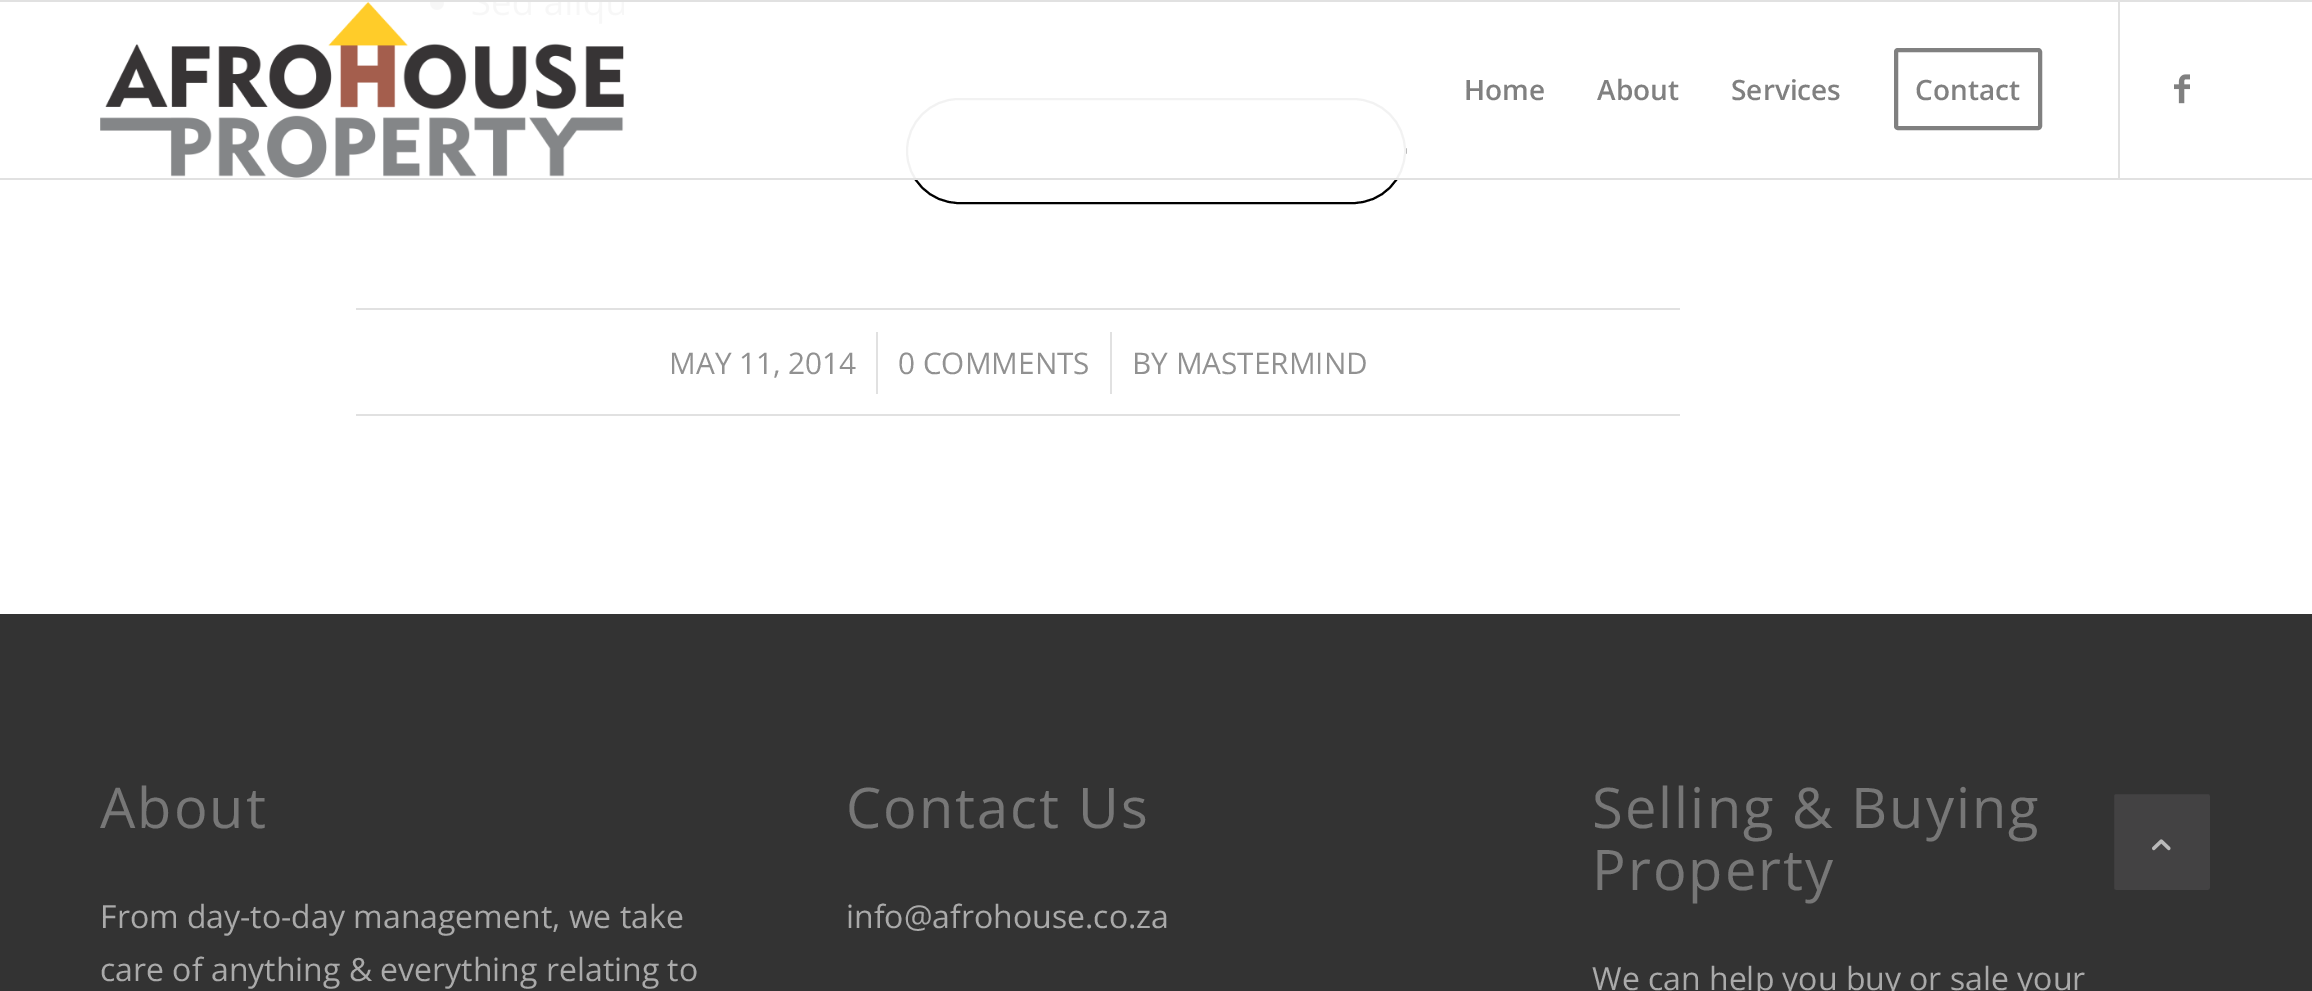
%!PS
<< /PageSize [2312 991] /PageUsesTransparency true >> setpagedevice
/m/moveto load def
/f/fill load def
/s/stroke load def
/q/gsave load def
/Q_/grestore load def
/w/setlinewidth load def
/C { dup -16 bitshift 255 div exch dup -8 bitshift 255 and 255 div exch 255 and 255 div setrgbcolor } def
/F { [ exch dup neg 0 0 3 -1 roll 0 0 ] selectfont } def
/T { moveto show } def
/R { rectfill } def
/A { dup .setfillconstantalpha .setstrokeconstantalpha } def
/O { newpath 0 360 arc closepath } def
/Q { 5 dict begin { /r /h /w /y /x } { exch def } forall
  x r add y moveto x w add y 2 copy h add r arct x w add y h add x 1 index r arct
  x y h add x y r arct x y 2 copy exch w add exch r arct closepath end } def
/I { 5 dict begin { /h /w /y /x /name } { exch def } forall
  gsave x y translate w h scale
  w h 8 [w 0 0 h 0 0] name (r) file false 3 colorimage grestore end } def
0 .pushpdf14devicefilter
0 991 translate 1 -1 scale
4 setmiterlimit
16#FFFFFF C
0 0 2312 991 R
16#666666 C
437 3 7 O f
16#000000 C
2 w
907 99 498 104 52 Q s
0.95 A
16#FFFFFF C
430 2 976 176 R
1 A
16#E1E1E1 C
0 0 2312 2 R
0 178 2312 2 R
(1.rgb) 100 2 524 176 I
2118 2 2 176 R
/OpenSans-SemiBold 28 F
16#808080 C
(Home) 1464 100 T
(About) 1597 100 T
(Services) 1731 100 T
4 w
1896 50 144 78 2 Q s
(Contact) 1915 100 T
(2.rgb) 2174 74 16 30 I
16#E1E1E1 C
356 308 1324 2 R
356 414 1324 2 R
/OpenSans-Regular 29.75 F
16#919191 C
(MAY 11, 2014) 669 374 T
16#E1E1E1 C
876 332 2 62 R
16#919191 C
(0 COMMENTS) 898 374 T
16#E1E1E1 C
1110 332 2 62 R
16#919191 C
(BY MASTERMIND) 1132 374 T
16#333333 C
0 614 2312 377 R
/OpenSans-Regular 56 F
16#777777 C
100 828 m 2 0 (About) ashow
/OpenSans-Regular 32 F
16#AAAAAA C
(From day-to-day management, we take) 100 928 T
(care of anything & everything relating to) 100 981 T
/OpenSans-Regular 56 F
16#777777 C
846 828 m 2 0 (Contact Us) ashow
/OpenSans-Regular 32 F
16#AAAAAA C
(info@afrohouse.co.za) 846 928 T
/OpenSans-Regular 56 F
16#777777 C
1592 828 m 2 0 (Selling & Buying) ashow
1592 890 m 2 0 (Property) ashow
/OpenSans-Regular 32 F
16#AAAAAA C
(We can help you buy or sale your) 1592 990 T
16#434243 C
2113 793 98 98 3 Q q f Q_
16#333333 C
2 w
s
(3.rgb) 2152 839 19 12 I
.poppdf14devicefilter showpage
